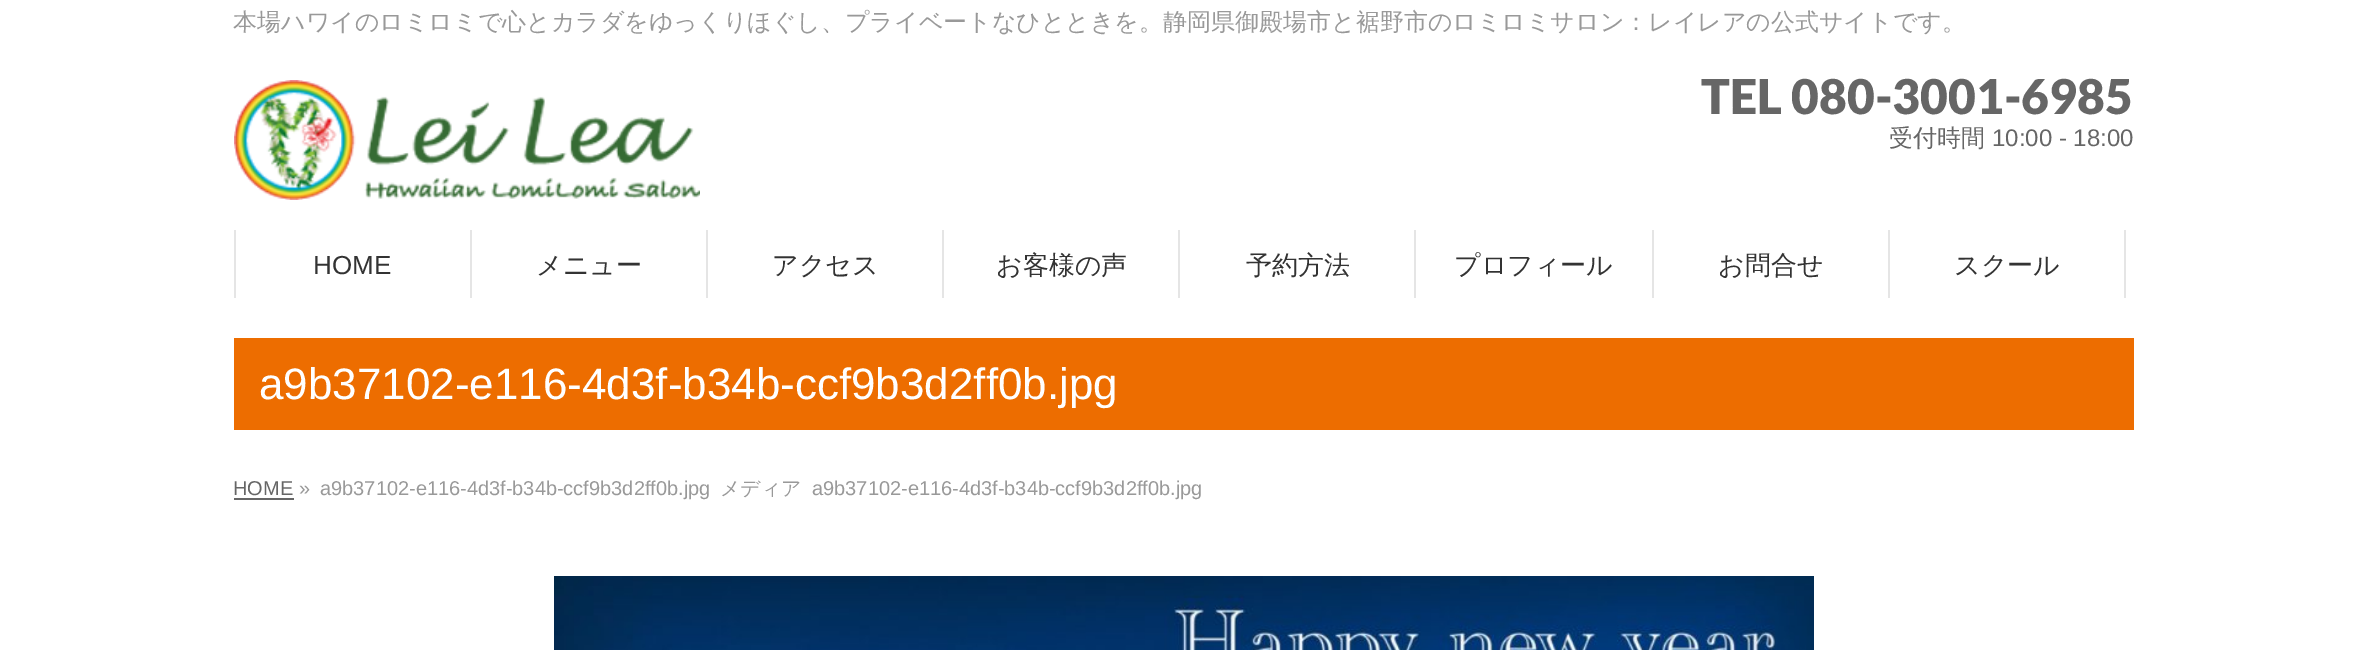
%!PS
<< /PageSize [2366 650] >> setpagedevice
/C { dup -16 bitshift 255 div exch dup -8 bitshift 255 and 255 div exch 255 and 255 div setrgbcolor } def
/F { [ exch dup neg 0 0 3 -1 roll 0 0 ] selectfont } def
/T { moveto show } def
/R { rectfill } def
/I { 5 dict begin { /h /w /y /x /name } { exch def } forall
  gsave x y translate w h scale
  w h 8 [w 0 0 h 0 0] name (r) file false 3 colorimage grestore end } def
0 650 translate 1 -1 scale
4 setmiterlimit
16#FFFFFF C
0 0 2366 650 R
/WenQuanYiZenHei-Medium 24 F
16#999999 C
(本場ハワイのロミロミで心とカラダをゆっくりほぐし、プライベートなひとときを。静岡県御殿場市と裾野市のロミロミサロン：レイレアの公式サイトです。) 233 30 T
(1.rgb) 234 80 466 120 I
/Lato-Black 48 F
16#666666 C
(TEL 080-3001-6985) 1701 114 T
/WenQuanYiZenHei-Medium 24 F
(受付時間) 1889 146 T
/LiberationSans-Regular 24 F
(10:00 - 18:00) 1992 146 T
16#E5E5E5 C
234 230 2 68 R
470 230 2 68 R
/LiberationSans-Regular 26 F
16#333333 C
(HOME) 313 274 T
16#E5E5E5 C
706 230 2 68 R
/WenQuanYiZenHei-Medium 26 F
16#333333 C
(メニュー) 536 274 T
16#E5E5E5 C
942 230 2 68 R
16#333333 C
(アクセス) 772 274 T
16#E5E5E5 C
1178 230 2 68 R
16#333333 C
(お客様の声) 996 274 T
16#E5E5E5 C
1414 230 2 68 R
16#333333 C
(予約方法) 1246 274 T
16#E5E5E5 C
1652 230 2 68 R
16#333333 C
(プロフィール) 1454 274 T
16#E5E5E5 C
1888 230 2 68 R
16#333333 C
(お問合せ) 1718 274 T
16#E5E5E5 C
2124 230 2 68 R
16#333333 C
(スクール) 1954 274 T
16#ED6D00 C
234 338 1900 92 R
/LiberationSans-Regular 44 F
16#FFFFFF C
(a9b37102-e116-4d3f-b34b-ccf9b3d2ff0b.jpg) 259 399 T
/LiberationSans-Regular 20 F
16#666666 C
(HOME) 233 495 T
234 498 60 2 R
16#999999 C
(») 299 495 T
(a9b37102-e116-4d3f-b34b-ccf9b3d2ff0b.jpg) 320 495 T
/WenQuanYiZenHei-Medium 20 F
(メディア) 720 495 T
/LiberationSans-Regular 20 F
(a9b37102-e116-4d3f-b34b-ccf9b3d2ff0b.jpg) 812 495 T
(2.rgb) 554 576 1260 74 I
showpage
